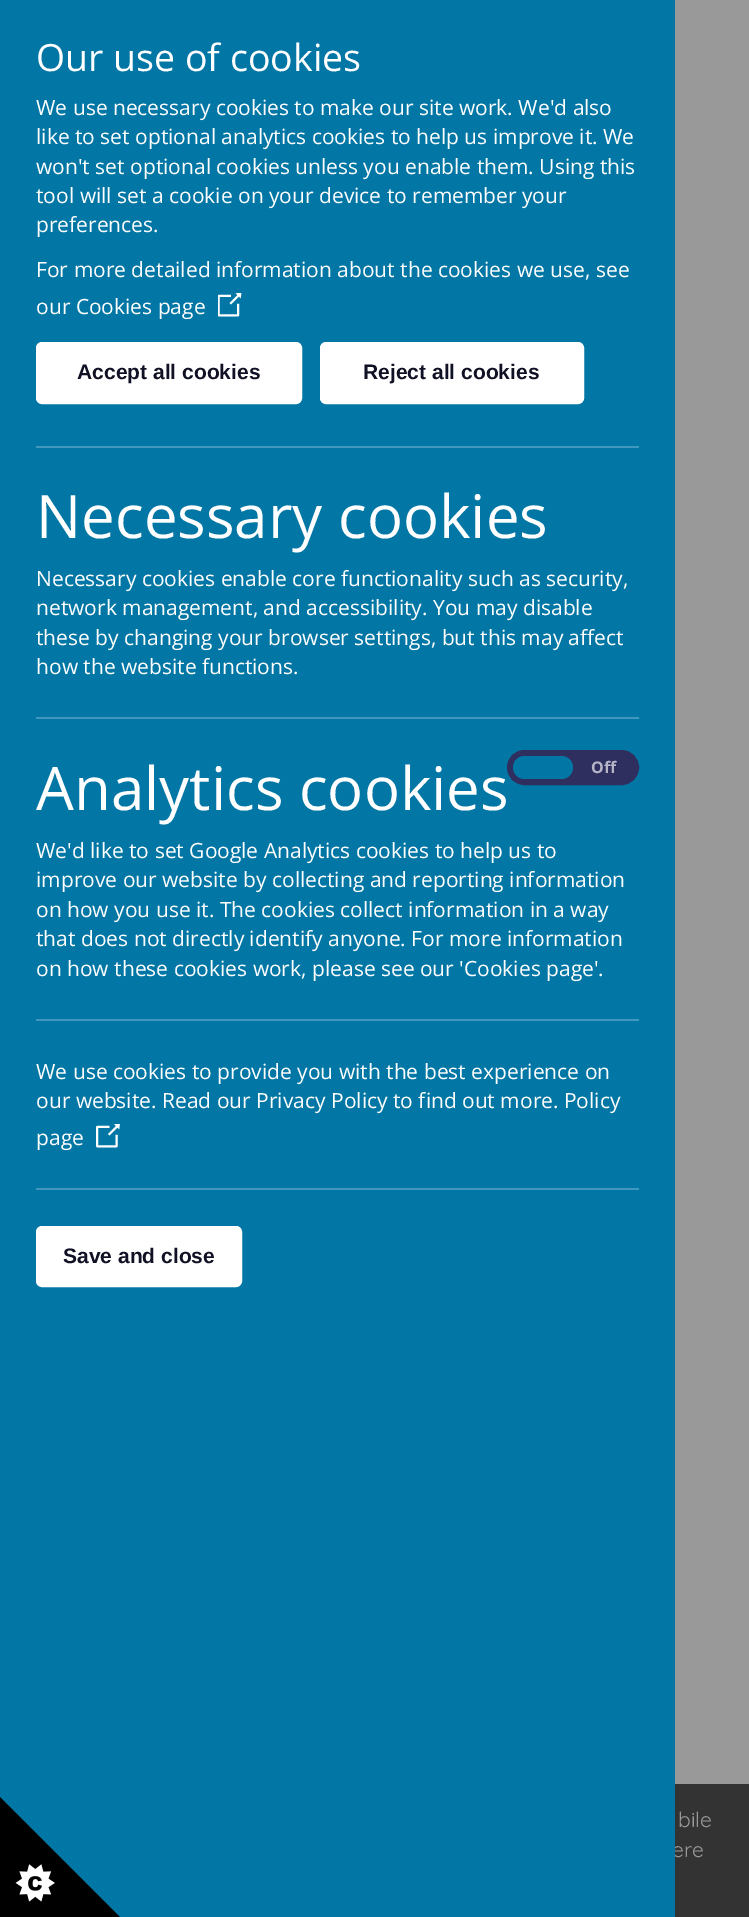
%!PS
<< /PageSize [749 1917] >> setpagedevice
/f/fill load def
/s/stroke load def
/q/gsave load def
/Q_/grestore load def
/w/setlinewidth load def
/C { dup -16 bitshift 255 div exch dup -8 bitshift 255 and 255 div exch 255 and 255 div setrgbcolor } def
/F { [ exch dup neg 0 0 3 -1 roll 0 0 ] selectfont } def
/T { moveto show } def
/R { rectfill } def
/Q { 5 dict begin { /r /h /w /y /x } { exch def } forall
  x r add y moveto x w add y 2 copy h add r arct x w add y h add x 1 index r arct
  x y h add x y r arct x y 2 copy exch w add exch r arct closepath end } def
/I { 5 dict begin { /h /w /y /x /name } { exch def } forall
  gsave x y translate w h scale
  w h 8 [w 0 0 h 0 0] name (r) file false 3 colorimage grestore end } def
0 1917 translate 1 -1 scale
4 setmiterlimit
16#999999 C
0 0 749 1917 R
16#333333 C
675 1784 74 133 R
/Quicksand-Regular 21 F
16#999999 C
(ere) 672 1857 T
16#0276A5 C
0 0 675 1917 R
/OpenSans-Regular 37.5 F
16#FFFFFF C
(Our use of cookies) 36 71 T
/OpenSans-Regular 21 F
(We use necessary cookies to make our site work. We'd also) 36 115 T
(like to set optional analytics cookies to help us improve it. We) 36 144 T
(won't set optional cookies unless you enable them. Using this) 36 174 T
(tool will set a cookie on your device to remember your) 36 203 T
(preferences.) 36 232 T
(For more detailed information about the cookies we use, see) 36 277 T
(our Cookies page) 36 314 T
(1.rgb) 218 293 24 24 I
37.5 343.5 263 59 4.5 Q q f Q_
3 w
s
/LiberationSans-Bold 21 F
16#111125 C
(Accept all cookies) 77 379 T
16#FFFFFF C
321.5 343.5 261 59 4.5 Q q f Q_
s
16#111125 C
(Reject all cookies) 363 379 T
16#4198BC C
36 446 603 2 R
/OpenSans-Regular 60 F
16#FFFFFF C
(Necessary cookies) 36 538 T
/OpenSans-Regular 21 F
(Necessary cookies enable core functionality such as security,) 36 586 T
(network management, and accessibility. You may disable) 36 615 T
(these by changing your browser settings, but this may affect) 36 645 T
(how the website functions.) 36 674 T
16#4198BC C
36 717 603 2 R
/OpenSans-Regular 60 F
16#FFFFFF C
(Analytics cookies) 36 810 T
16#2F2F5F C
510 753 126 29 14.5 Q q f Q_
6 w
s
16#0276A5 C
513 756 60 23 11.5 Q f
/OpenSans-Bold 16 F
16#B6B6C7 C
(Off) 591 773 T
/OpenSans-Regular 21 F
16#FFFFFF C
(We'd like to set Google Analytics cookies to help us to) 36 858 T
(improve our website by collecting and reporting information) 36 887 T
(on how you use it. The cookies collect information in a way) 36 917 T
(that does not directly identify anyone. For more information) 36 946 T
(on how these cookies work, please see our 'Cookies page'.) 36 976 T
16#4198BC C
36 1019 603 2 R
16#FFFFFF C
(We use cookies to provide you with the best experience on) 36 1079 T
(our website. Read our Privacy Policy to find out more. Policy) 36 1108 T
(page) 36 1145 T
(2.rgb) 96 1124 24 24 I
16#4198BC C
36 1188 603 2 R
16#FFFFFF C
37.5 1227.5 203 58 4.5 Q q f Q_
3 w
s
/LiberationSans-Bold 21 F
16#111125 C
(Save and close) 63 1263 T
(3.rgb) 0 1797 120 120 I
/Quicksand-Regular 21 F
16#999999 C
(bile) 678 1827 T
showpage
